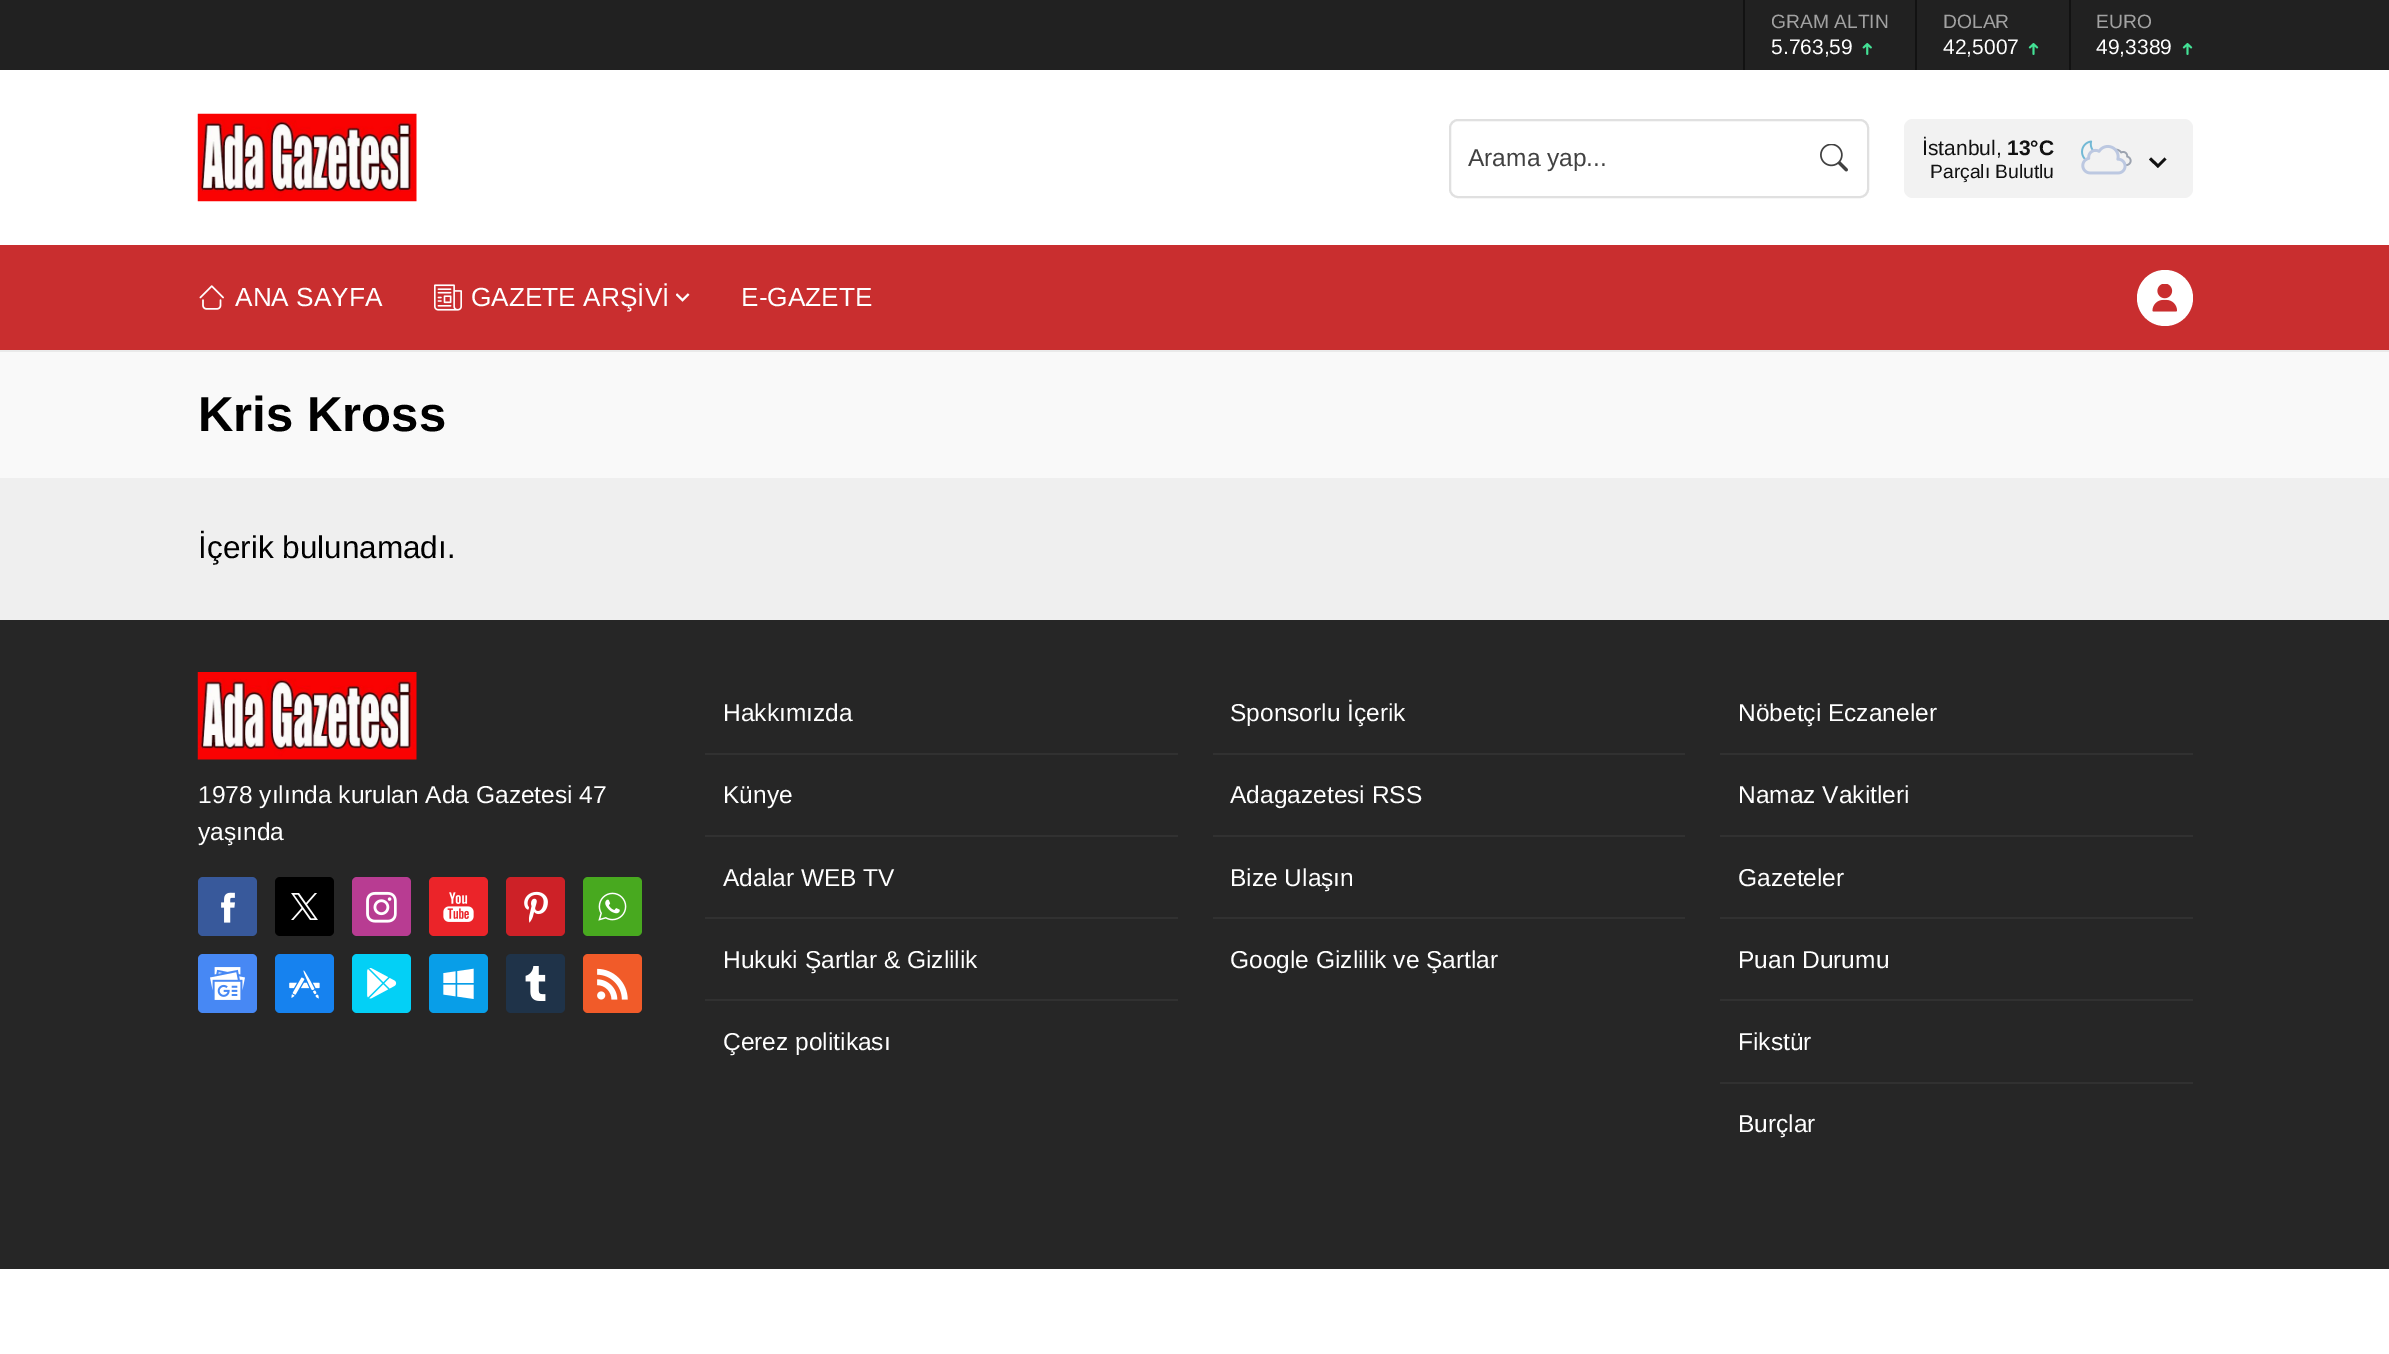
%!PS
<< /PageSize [2389 1354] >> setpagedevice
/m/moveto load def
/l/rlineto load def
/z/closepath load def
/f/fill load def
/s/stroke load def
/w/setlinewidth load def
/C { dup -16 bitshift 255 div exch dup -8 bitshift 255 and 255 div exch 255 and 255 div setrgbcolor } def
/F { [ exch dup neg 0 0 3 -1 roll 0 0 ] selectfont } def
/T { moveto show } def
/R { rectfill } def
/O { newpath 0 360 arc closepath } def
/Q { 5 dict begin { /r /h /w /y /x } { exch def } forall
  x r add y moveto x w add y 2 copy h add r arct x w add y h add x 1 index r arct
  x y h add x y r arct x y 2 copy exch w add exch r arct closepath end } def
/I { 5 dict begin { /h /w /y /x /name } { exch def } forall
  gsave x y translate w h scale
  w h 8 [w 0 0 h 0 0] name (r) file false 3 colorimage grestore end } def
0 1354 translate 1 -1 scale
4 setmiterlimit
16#FFFFFF C
0 0 2389 1354 R
16#EFEFEF C
0 478 2389 142 R
16#EAEAEA C
0 350 2389 2 R
16#212121 C
0 0 2389 70 R
16#121212 C
1743 0 2 70 R
/LiberationSans-Regular 19.25 F
16#A2A2A2 C
(GRAM ALTIN) 1771 28 T
/LiberationSans-Regular 21 F
16#FFFFFF C
(5.763,59) 1771 54 T
(1.rgb) 1862 43 10 12 I
16#121212 C
1915 0 2 70 R
/LiberationSans-Regular 19.25 F
16#A2A2A2 C
(DOLAR) 1943 28 T
/LiberationSans-Regular 21 F
16#FFFFFF C
(42,5007) 1943 54 T
(2.rgb) 2028 43 11 12 I
16#121212 C
2069 0 2 70 R
/LiberationSans-Regular 19.25 F
16#A2A2A2 C
(EURO) 2096 28 T
/LiberationSans-Regular 21 F
16#FFFFFF C
(49,3389) 2096 54 T
(2.rgb) 2182 43 11 12 I
(3.rgb) 197 113 220 89 I
16#E0E0E0 C
2 w
1450 120 418 77 8 Q s
/LiberationSans-Regular 24.5 F
16#414141 C
(Arama yap...) 1468 166 T
(4.rgb) 1820 144 28 28 I
16#F2F2F2 C
1904 119 289 79 9 Q f
/LiberationSans-Regular 21 F
16#121212 C
(İstanbul,) 1922 155 T
/LiberationSans-Bold 21 F
(13°C) 2007 155 T
/LiberationSans-Regular 19.25 F
(Parçalı Bulutlu) 1930 178 T
(5.rgb) 2081 140 51 35 I
2164.5 157.5 m -6.5 6.5 l -7 -6.5 l -2 2 l 9 8.5 l 8.5 -8.5 l z f
16#C92E2F C
0 245 2389 105 R
(6.rgb) 199 285 25 25 I
/LiberationSans-Regular 26.25 F
16#FFFFFF C
(ANA SAYFA) 235 306 T
(7.rgb) 434 284 28 27 I
(GAZETE ARŞİVİ) 471 306 T
(8.rgb) 676 293 14 9 I
(E-GAZETE) 741 306 T
2165 298 28 O f
(9.rgb) 2152 284 25 28 I
16#F9F9F9 C
0 352 2389 126 R
/LiberationSans-Bold 49 F
16#000000 C
(Kris Kross) 198 431 T
/LiberationSans-Regular 31.5 F
(İçerik bulunamadı.) 198 558 T
16#262626 C
0 620 2389 649 R
(10.rgb) 197 672 220 88 I
/LiberationSans-Regular 24.5 F
16#FFFFFF C
(1978 yılında kurulan Ada Gazetesi 47) 198 803 T
(yaşında) 198 840 T
16#38599B C
198 877 59 59 5 Q f
(11.rgb) 221 892 14 31 I
16#000000 C
275 877 59 59 5 Q f
(12.rgb) 291 893 27 27 I
16#B83C92 C
352 877 59 59 5 Q f
(13.rgb) 366 891 31 32 I
16#EB2429 C
429 877 59 59 5 Q f
(14.rgb) 443 892 31 30 I
16#CD2127 C
506 877 59 59 5 Q f
(15.rgb) 524 891 24 32 I
16#48A91F C
583 877 59 59 5 Q f
(16.rgb) 598 892 29 29 I
16#4788F4 C
198 954 59 59 5 Q f
(17.rgb) 210 967 35 33 I
16#1682EF C
275 954 59 59 5 Q f
(18.rgb) 289 970 31 29 I
16#03D0F6 C
352 954 59 59 5 Q f
(19.rgb) 367 968 30 31 I
16#089EE8 C
429 954 59 59 5 Q f
(20.rgb) 443 968 31 31 I
16#1F3349 C
506 954 59 59 5 Q f
(21.rgb) 525 966 21 35 I
16#F15B29 C
583 954 59 59 5 Q f
(22.rgb) 597 968 31 32 I
16#FFFFFF C
(Hakkımızda) 723 721 T
16#313131 C
705 753 473 2 R
16#FFFFFF C
(Künye) 723 803 T
16#313131 C
705 835 473 2 R
16#FFFFFF C
(Adalar WEB TV) 723 886 T
16#313131 C
705 917 473 2 R
16#FFFFFF C
(Hukuki Şartlar & Gizlilik) 723 968 T
16#313131 C
705 999 473 2 R
16#FFFFFF C
(Çerez politikası) 723 1050 T
(Sponsorlu İçerik) 1230 721 T
16#313131 C
1213 753 472 2 R
16#FFFFFF C
(Adagazetesi RSS) 1230 803 T
16#313131 C
1213 835 472 2 R
16#FFFFFF C
(Bize Ulaşın) 1230 886 T
16#313131 C
1213 917 472 2 R
16#FFFFFF C
(Google Gizlilik ve Şartlar) 1230 968 T
(Nöbetçi Eczaneler) 1738 721 T
16#313131 C
1720 753 473 2 R
16#FFFFFF C
(Namaz Vakitleri) 1738 803 T
16#313131 C
1720 835 473 2 R
16#FFFFFF C
(Gazeteler) 1738 886 T
16#313131 C
1720 917 473 2 R
16#FFFFFF C
(Puan Durumu) 1738 968 T
16#313131 C
1720 999 473 2 R
16#FFFFFF C
(Fikstür) 1738 1050 T
16#313131 C
1720 1082 473 2 R
16#FFFFFF C
(Burçlar) 1738 1132 T
showpage
